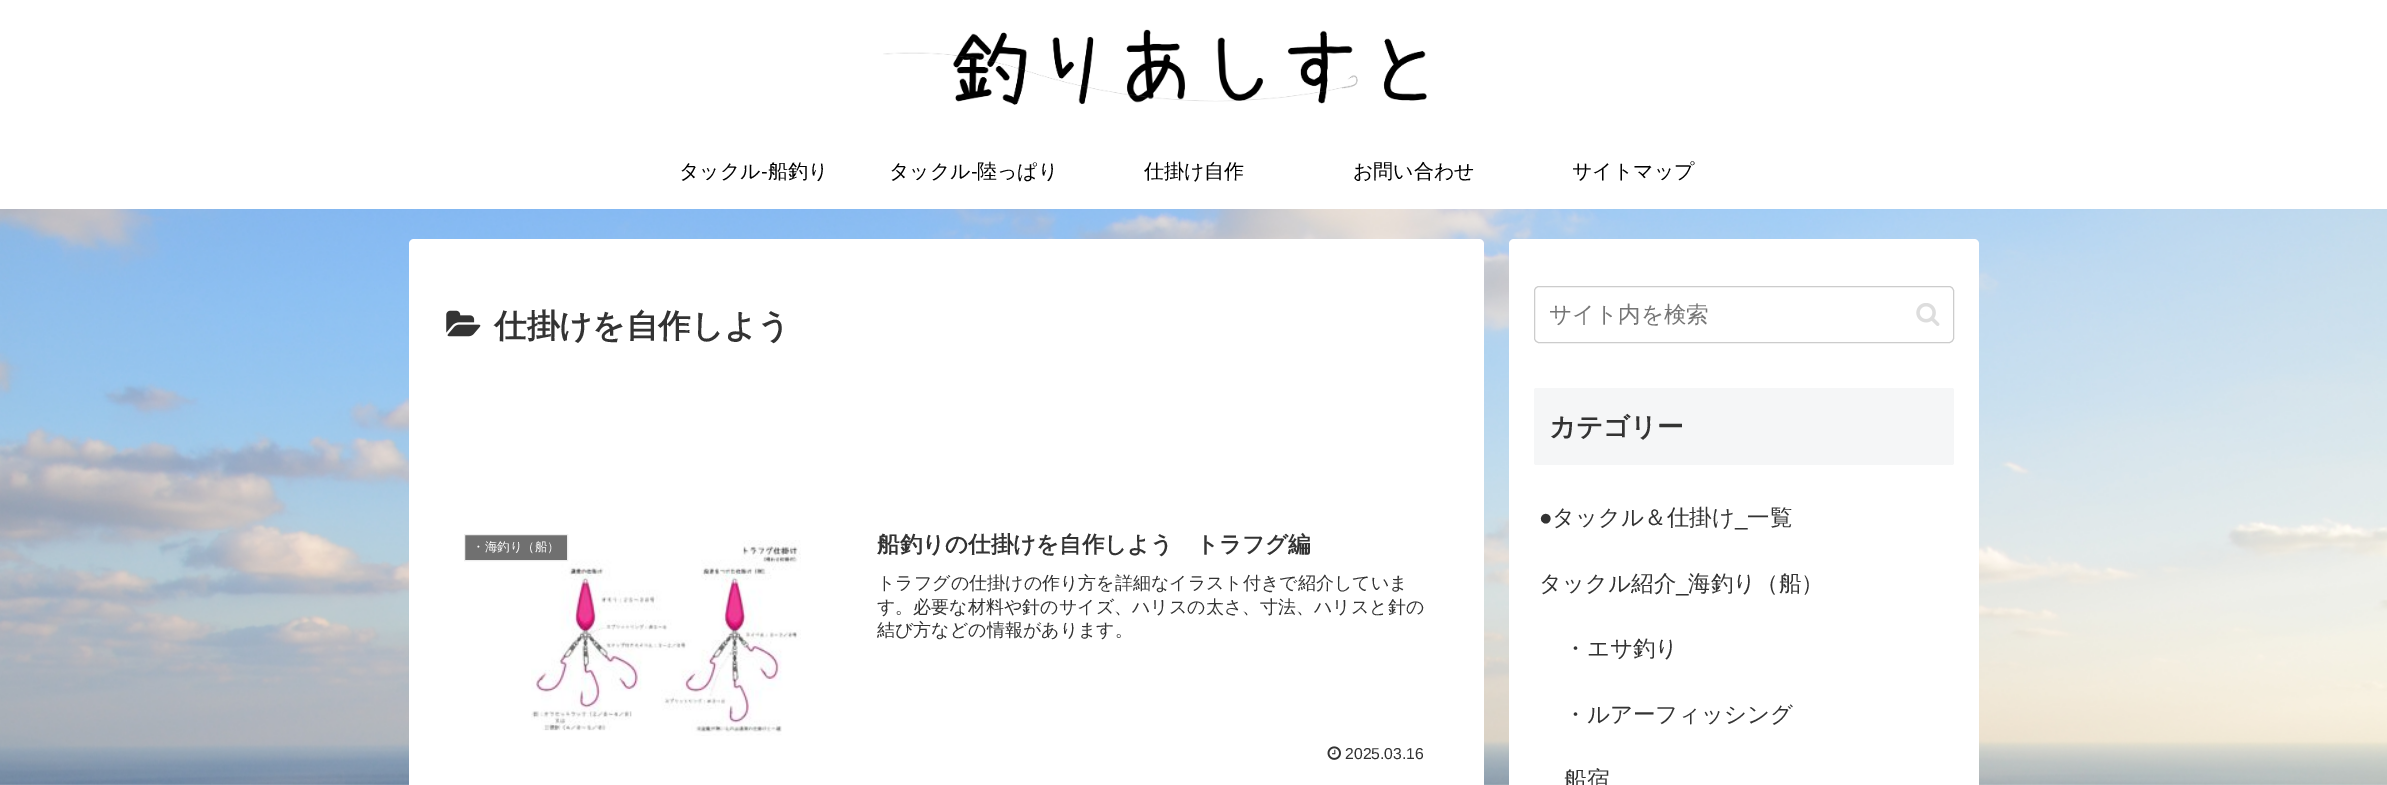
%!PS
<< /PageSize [2387 785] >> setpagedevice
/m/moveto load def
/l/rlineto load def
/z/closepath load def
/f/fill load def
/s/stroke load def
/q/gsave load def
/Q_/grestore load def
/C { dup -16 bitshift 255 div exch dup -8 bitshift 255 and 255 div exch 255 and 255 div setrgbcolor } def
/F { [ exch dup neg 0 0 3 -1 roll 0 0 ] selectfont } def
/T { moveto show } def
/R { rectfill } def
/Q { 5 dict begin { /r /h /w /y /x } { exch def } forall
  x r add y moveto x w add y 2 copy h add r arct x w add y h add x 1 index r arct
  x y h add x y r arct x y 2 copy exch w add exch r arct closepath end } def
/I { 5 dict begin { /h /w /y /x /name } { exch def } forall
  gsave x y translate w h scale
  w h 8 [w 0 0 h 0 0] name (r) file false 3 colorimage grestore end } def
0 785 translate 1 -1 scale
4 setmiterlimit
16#FFFFFF C
0 0 2387 785 R
(1.rgb) 0 209 2387 576 I
(2.rgb) 883 29 544 76 I
/WenQuanYiZenHei-Medium 20 F
16#000000 C
(タックル) 679 178 T
/LiberationSans-Regular 20 F
(-) 761 178 T
/WenQuanYiZenHei-Medium 20 F
(船釣り) 768 178 T
(タックル) 889 178 T
/LiberationSans-Regular 20 F
(-) 971 178 T
/WenQuanYiZenHei-Medium 20 F
(陸っぱり) 977 178 T
(仕掛け自作) 1144 178 T
(お問い合わせ) 1353 178 T
(サイトマップ) 1572 178 T
16#FFFFFF C
409 239 1075 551 5 Q f
(3.rgb) 446 310 35 27 I
/WenQuanYiZenHei-Bold 32.5 F
16#333333 C
(仕掛けを自作しよう) 494 337 T
(4.rgb) 531 540 270 196 I
16#707070 C
464.5 534.5 m 103 0 l 0 26 l -103 0 l z q f Q_
16#EEEEEE C
s
/WenQuanYiZenHei-Medium 12.5 F
16#FFFFFF C
(・海釣り（船）) 472 551 T
/WenQuanYiZenHei-Bold 22.5 F
16#333333 C
(船釣りの仕掛けを自作しよう　トラフグ編) 877 552 T
/WenQuanYiZenHei-Medium 18 F
(トラフグの仕掛けの作り方を詳細なイラスト付きで紹介していま) 877 589 T
(す。必要な材料や針のサイズ、ハリスの太さ、寸法、ハリスと針の) 877 613 T
(結び方などの情報があります。) 877 636 T
(5.rgb) 1327 746 14 14 I
/LiberationSans-Regular 15.75 F
(2025.03.16) 1345 759 T
16#FFFFFF C
1509 239 470 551 5 Q f
16#CCCCCC C
1534.5 286.5 419 56 4.5 Q s
/WenQuanYiZenHei-Medium 22.5 F
16#757575 C
(サイト内を検索) 1549 322 T
(6.rgb) 1916 303 24 23 I
16#F5F6F7 C
1534 388 420 77 2.5 Q f
/WenQuanYiZenHei-Bold 26.5 F
16#333333 C
(カテゴリー) 1549 436 T
/LiberationSans-Regular 22.5 F
(●) 1539 525 T
/WenQuanYiZenHei-Medium 22.5 F
(タックル＆仕掛け) 1552 525 T
(一覧) 1747 525 T
/LiberationSans-Regular 22.5 F
(_) 1735 525 T
/WenQuanYiZenHei-Medium 22.5 F
(タックル紹介) 1539 591 T
/LiberationSans-Regular 22.5 F
(_) 1676 591 T
/WenQuanYiZenHei-Medium 22.5 F
(海釣り（船）) 1688 591 T
(・エサ釣り) 1564 656 T
(・ルアーフィッシング) 1564 722 T
(船宿) 1564 787 T
showpage
